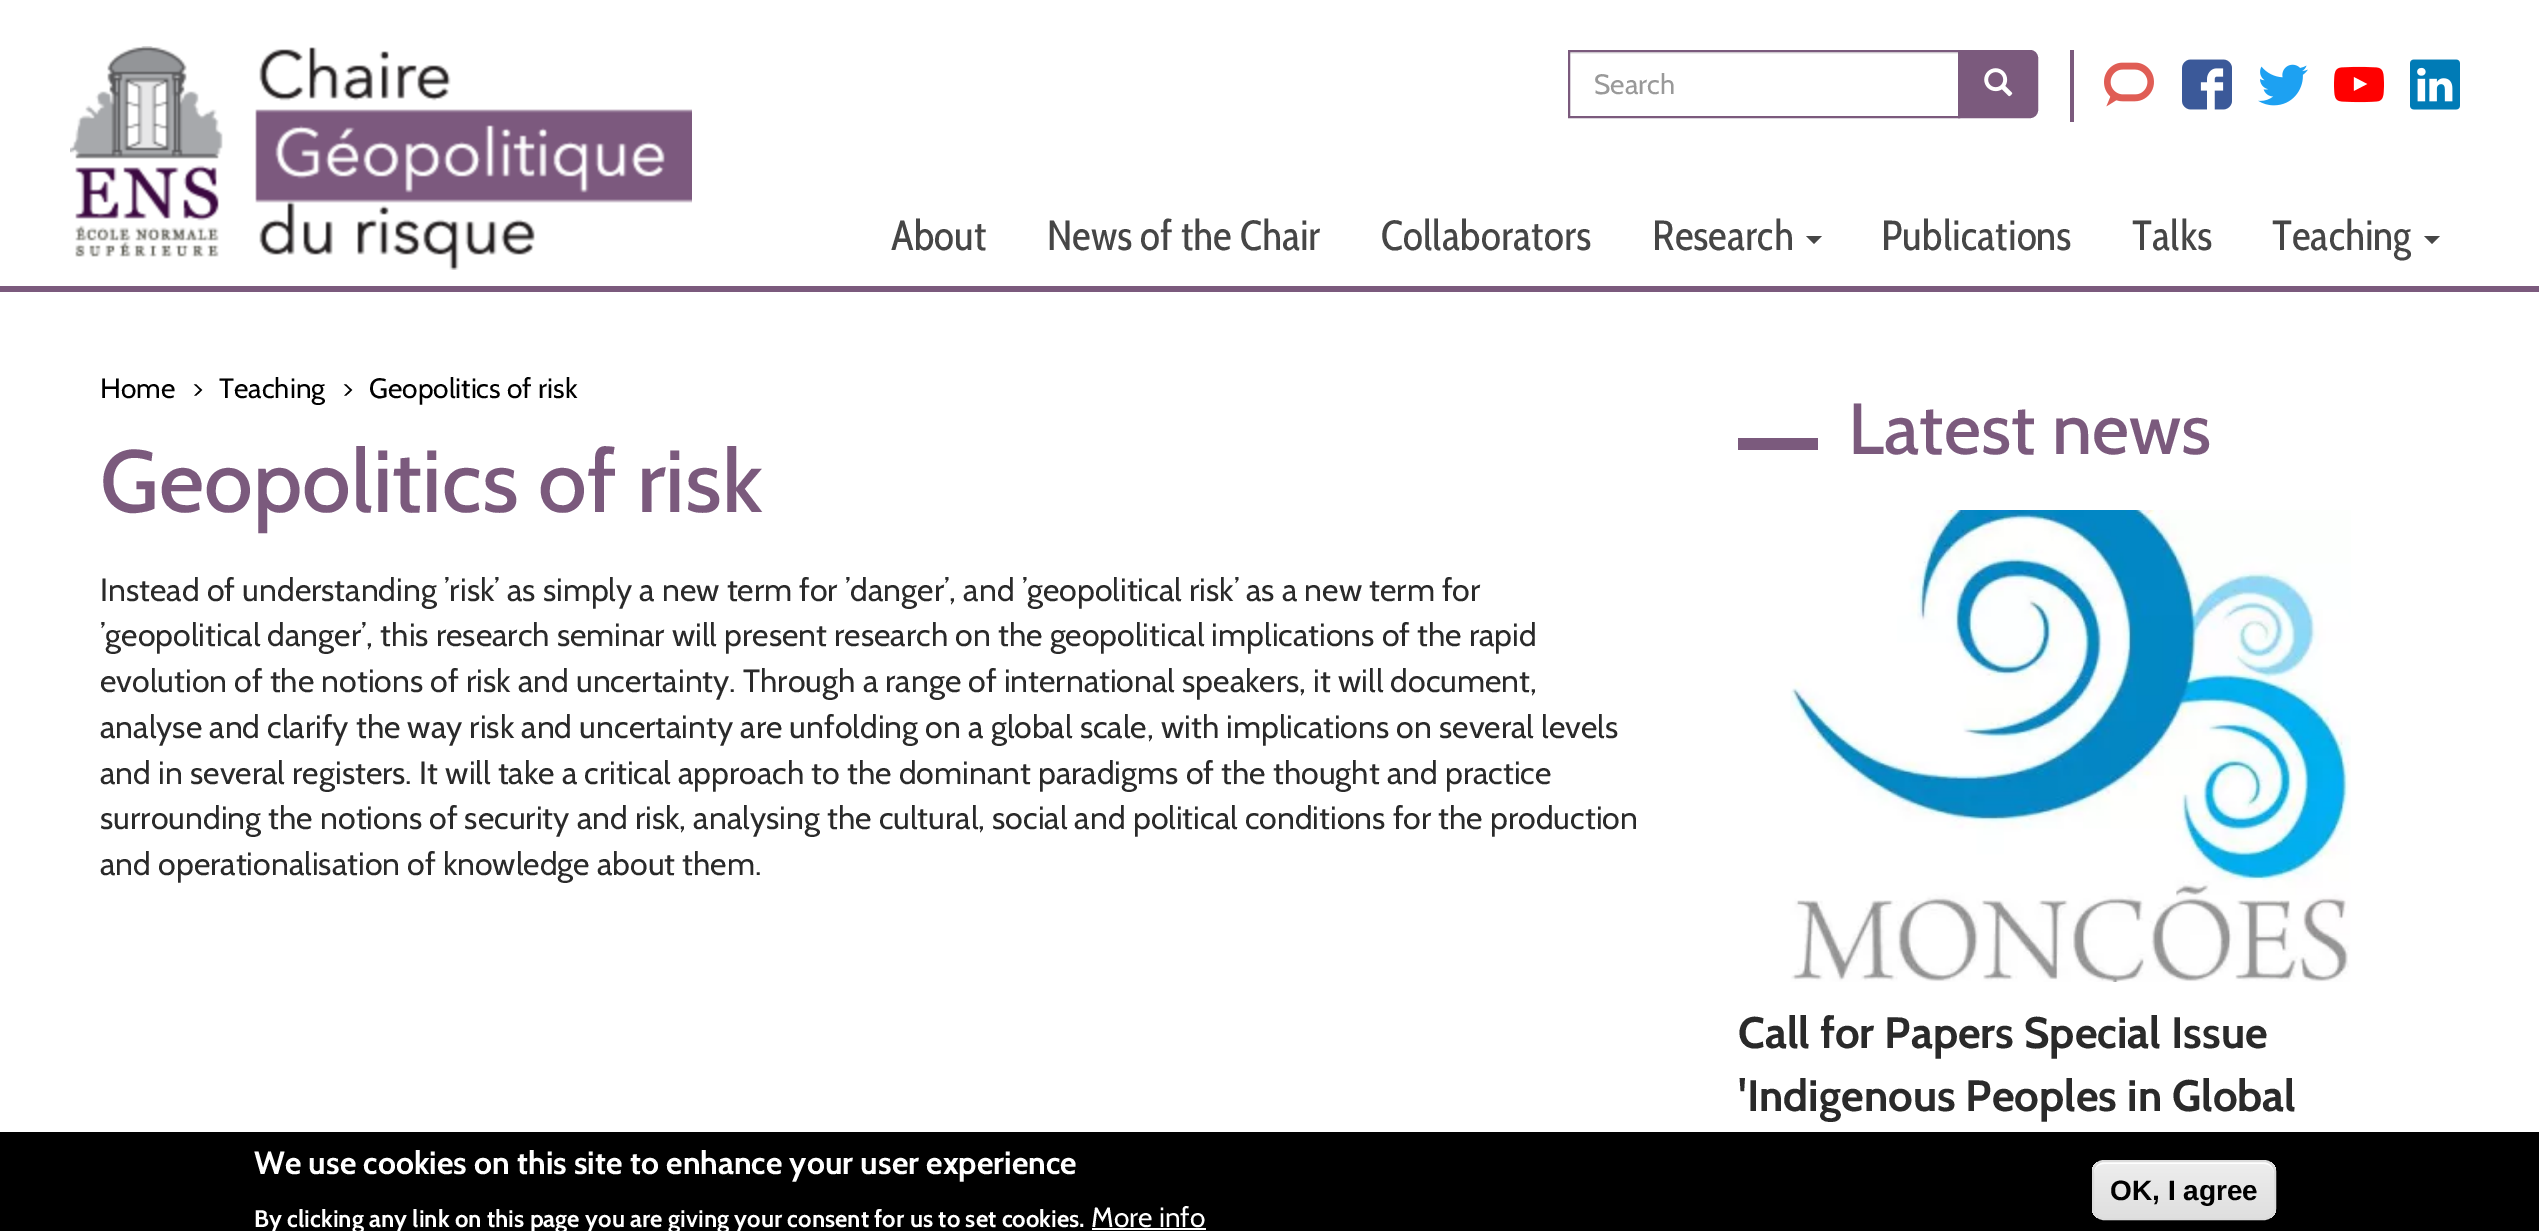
%!PS
<< /PageSize [2539 1231] >> setpagedevice
/m/moveto load def
/l/rlineto load def
/c/rcurveto load def
/z/closepath load def
/f/fill load def
/s/stroke load def
/q/gsave load def
/Q_/grestore load def
/w/setlinewidth load def
/C { dup -16 bitshift 255 div exch dup -8 bitshift 255 and 255 div exch 255 and 255 div setrgbcolor } def
/F { [ exch dup neg 0 0 3 -1 roll 0 0 ] selectfont } def
/T { moveto show } def
/R { rectfill } def
/Q { 5 dict begin { /r /h /w /y /x } { exch def } forall
  x r add y moveto x w add y 2 copy h add r arct x w add y h add x 1 index r arct
  x y h add x y r arct x y 2 copy exch w add exch r arct closepath end } def
/I { 5 dict begin { /h /w /y /x /name } { exch def } forall
  gsave x y translate w h scale
  w h 8 [w 0 0 h 0 0] name (r) file false 3 colorimage grestore end } def
0 1231 translate 1 -1 scale
4 setmiterlimit
16#FFFFFF C
0 0 2539 1231 R
(1.rgb) 70 46 622 224 I
16#ECECEC C
1570 52 388 2 R
16#7B5A7D C
2 w
1569 51 390 66 rectstroke
/Cabin-Regular 28 F
16#999999 C
(Search) 1594 94 T
16#7B5A7D C
1959 51 m 71 0 l 4 0 7 3 7 7 c 0 52 l 0 4 -3 7 -7 7 c -71 0 l z q f Q_
s
(2.rgb) 1984 68 29 29 I
2070 50 4 72 R
(3.rgb) 2104 62 50 45 I
(4.rgb) 2182 59 50 51 I
(5.rgb) 2258 64 50 42 I
(6.rgb) 2334 66 50 37 I
(7.rgb) 2410 59 50 51 I
/CabinCondensed-Regular 42 F
16#464646 C
(About) 891 250 T
(News of the Chair) 1047 250 T
(Collaborators) 1381 250 T
(Research) 1652 250 T
1806 236 m 16 0 l -8 8 l z f
(Publications) 1881 250 T
(Talks) 2132 250 T
(Teaching) 2272 250 T
2424 236 m 16 0 l -8 8 l z f
16#7B5A7D C
0 286 2539 6 R
/Cabin-Regular 28 F
16#000000 C
(Home) 100 398 T
(>) 192 398 T
(Teaching) 219 398 T
(>) 342 398 T
(Geopolitics of risk) 369 398 T
/Cabin-Medium 88 F
16#7B5A7D C
(Geopolitics of risk) 100 512 T
/Cabin-Regular 32 F
16#2A2A2A C
(Instead of understanding ’risk’ as simply a new term for ’danger’, and ’geopolitical risk’ as a new term for) 100 601 T
(’geopolitical danger’, this research seminar will present research on the geopolitical implications of the rapid) 100 646 T
(evolution of the notions of risk and uncertainty. Through a range of international speakers, it will document,) 100 692 T
(analyse and clarify the way risk and uncertainty are unfolding on a global scale, with implications on several levels) 100 738 T
(and in several registers. It will take a critical approach to the dominant paradigms of the thought and practice) 100 784 T
(surrounding the notions of security and risk, analysing the cultural, social and political conditions for the production) 100 829 T
(and operationalisation of knowledge about them.) 100 875 T
16#7B5A7D C
1738 438 80 12 R
/Cabin-Medium 72 F
(Latest news) 1848 454 T
(8.rgb) 1790 510 561 472 I
/Cabin-Bold 44 F
16#2A2A2A C
(Call for Papers Special Issue) 1738 1048 T
('Indigenous Peoples in Global) 1738 1111 T
16#000000 C
0 1132 2539 99 R
/Cabin-Bold 32 F
16#FFFFFF C
(We use cookies on this site to enhance your user experience) 254 1174 T
/Cabin-Bold 24 F
(By clicking any link on this page you are giving your consent for us to set cookies.) 254 1227 T
/Cabin-Regular 28 F
(More info) 1091 1227 T
1092 1228 114 2 R
q
2092 1160 184 60 12 Q clip newpath
q 2092 1162 m 184 0 l 0 56 l -184 0 l z clip newpath
<< /ShadingType 2 /ColorSpace /DeviceRGB /Coords [2184 1162 2184 1218] /Extend [true true] /Function << /FunctionType 3 /Domain [0 1] /Functions [<< /FunctionType 2 /Domain [0 1] /C0 [.929 .929 .929] /C1 [.929 .929 .929] /N 1 >> << /FunctionType 2 /Domain [0 1] /C0 [.929 .929 .929] /C1 [.875 .875 .875] /N 1 >>] /Bounds [.05] /Encode [0 1 0 1] >> >> shfill Q_
Q_
2104 1164 m 160 0 l 6 0 10 4 10 10 c 0 -2 l 0 -6 -4 -10 -10 -10 c -160 0 l -6 0 -10 4 -10 10 c 0 2 l 0 -6 4 -10 10 -10 c z f
16#DCDCDC C
2093 1161 182 58 11 Q s
/LiberationSans-Bold 28 F
16#000000 C
(OK, I agree) 2110 1200 T
showpage
